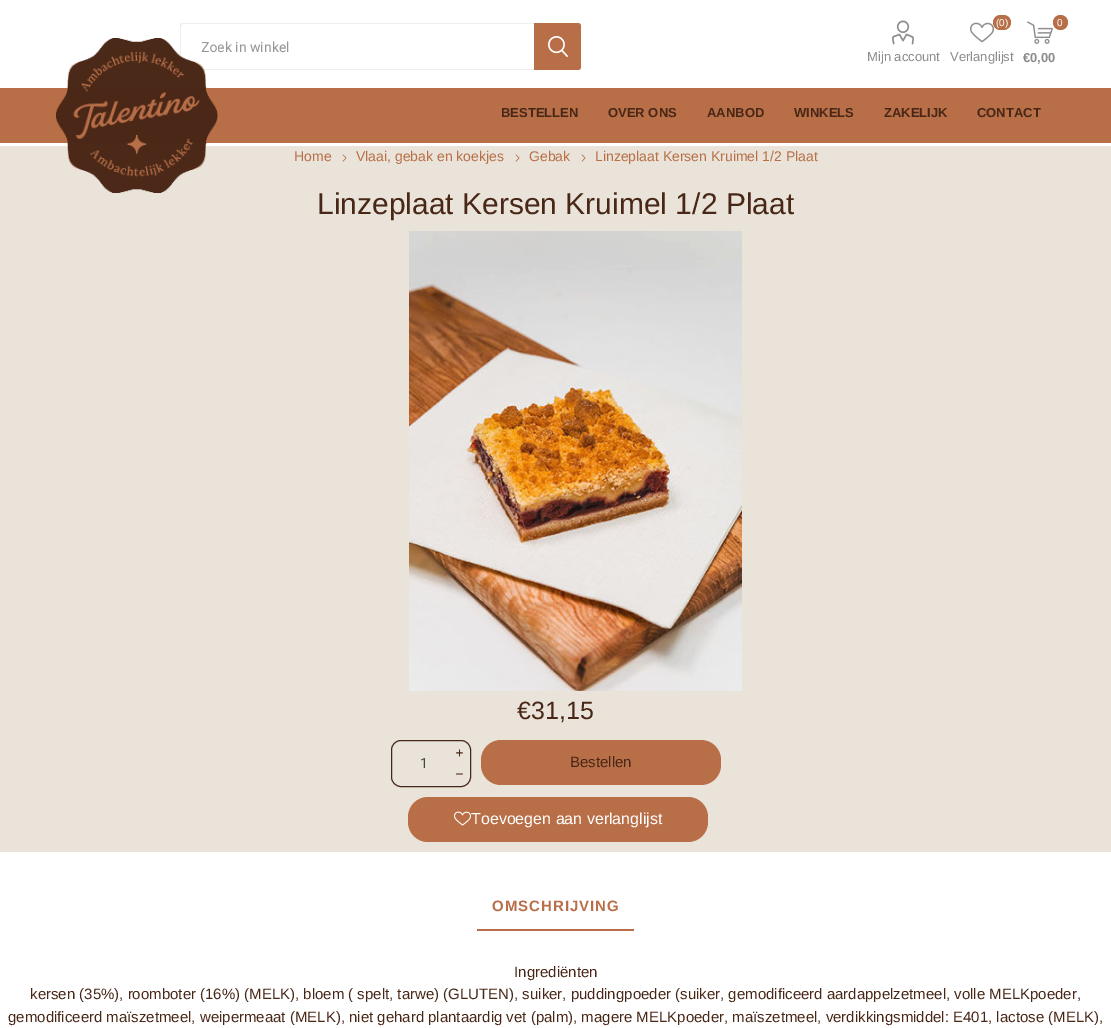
%!PS
<< /PageSize [1111 1028] >> setpagedevice
/m/moveto load def
/l/rlineto load def
/c/rcurveto load def
/z/closepath load def
/f/fill load def
/s/stroke load def
/C { dup -16 bitshift 255 div exch dup -8 bitshift 255 and 255 div exch 255 and 255 div setrgbcolor } def
/F { [ exch dup neg 0 0 3 -1 roll 0 0 ] selectfont } def
/T { moveto show } def
/R { rectfill } def
/O { newpath 0 360 arc closepath } def
/Q { 5 dict begin { /r /h /w /y /x } { exch def } forall
  x r add y moveto x w add y 2 copy h add r arct x w add y h add x 1 index r arct
  x y h add x y r arct x y 2 copy exch w add exch r arct closepath end } def
/I { 5 dict begin { /h /w /y /x /name } { exch def } forall
  gsave x y translate w h scale
  w h 8 [w 0 0 h 0 0] name (r) file false 3 colorimage grestore end } def
0 1028 translate 1 -1 scale
4 setmiterlimit
16#FFFFFF C
0 0 1111 1028 R
16#EEEEEE C
183 23 m 351 0 l 0 47 l -351 0 l -2 0 -3 -1 -3 -3 c 0 -41 l 0 -2 1 -3 3 -3 c z 183 24 m 351 0 l 0 45 l -351 0 l -1 0 -2 -1 -2 -2 c 0 -41 l 0 -1 1 -2 2 -2 c z eofill
/Roboto-Regular 14 F
16#959595 C
(Zoek in winkel) 201 52 T
16#B86F47 C
534 23 m 44 0 l 1.5 0 3 1.5 3 3 c 0 41 l 0 1.5 -1.5 3 -3 3 c -44 0 l z f
(1.rgb) 548 36 20 21 I
(2.rgb) 892 20 22 25 I
/LiberationSans-Regular 13 F
16#8C8C8C C
(Mijn account) 867 61 T
(3.rgb) 970 22 24 21 I
16#B86F47 C
993 15 18 15 7.5 Q f
/LiberationSans-Regular 10 F
16#FFFFFF C
(\(0\)) 996 26 T
/LiberationSans-Regular 13 F
16#8C8C8C C
(Verlanglijst) 950 61 T
(4.rgb) 1027 21 26 23 I
16#B86F47 C
1060.5 22.5 7.5 O f
/LiberationSans-Regular 10 F
16#FFFFFF C
(0) 1057 26 T
/LiberationSans-Bold 13 F
16#8C8C8C C
(€0,00) 1023 62 T
16#B86F47 C
0 88 1111 55 R
16#E9E3D9 C
0 146 1111 706 R
(5.rgb) 56 38 162 155 I
16#492717 C
(BESTELLEN) 501 117 T
(OVER ONS) 608 117 T
(AANBOD) 707 117 T
(WINKELS) 794 117 T
(ZAKELIJK) 884 117 T
(CONTACT) 977 117 T
/LiberationSans-Regular 14 F
16#B86F47 C
(Home) 294 161 T
(6.rgb) 342 154 5 8 I
(Vlaai, gebak en koekjes) 356 161 T
(6.rgb) 515 154 5 8 I
(Gebak) 529 161 T
(6.rgb) 581 154 5 8 I
(Linzeplaat Kersen Kruimel 1/2 Plaat) 595 161 T
/LiberationSans-Regular 30 F
16#492717 C
(Linzeplaat Kersen Kruimel 1/2 Plaat) 317 214 T
(7.rgb) 409 231 333 460 I
/LiberationSans-Regular 25 F
(€31,15) 517 719 T
16#E7E7E7 C
392.5 741.5 77 44 8.5 Q s
16#492717 C
391.5 740.5 79 46 9.5 Q s
16#E9E3D9 C
466 744 1 1 R
/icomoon-Regular 7 F
16#492717 C
(i) 456 756 T
/Roboto-Regular 14 F
16#444444 C
(1) 420 768 T
16#E9E3D9 C
466 782 1 1 R
/icomoon-Regular 7 F
16#492717 C
(h) 456 777 T
16#B86F47 C
481 740 240 45 20 Q f
/LiberationSans-Regular 15 F
16#492717 C
(Bestellen) 570 767 T
16#B86F47 C
408 797 300 45 20 Q f
(8.rgb) 454 811 17 15 I
/LiberationSans-Regular 16 F
16#FFFFFF C
(Toevoegen aan verlanglijst) 471 824 T
16#B86F47 C
477 929 157 2 R
/LiberationSans-Bold 15 F
492 911 m 1 0 (OMSCHRIJVING) ashow
/LiberationSans-Regular 15 F
16#492717 C
(Ingrediënten) 514 977 T
(kersen \(35%\), roomboter \(16%\) \(MELK\), bloem \( spelt, tarwe\) \(GLUTEN\), suiker, puddingpoeder \(suiker, gemodificeerd aardappelzetmeel, volle MELKpoeder,) 30 999 T
(gemodificeerd maïszetmeel, weipermeaat \(MELK\), niet gehard plantaardig vet \(palm\), magere MELKpoeder, maïszetmeel, verdikkingsmiddel: E401, lactose \(MELK\),) 8 1022 T
showpage
